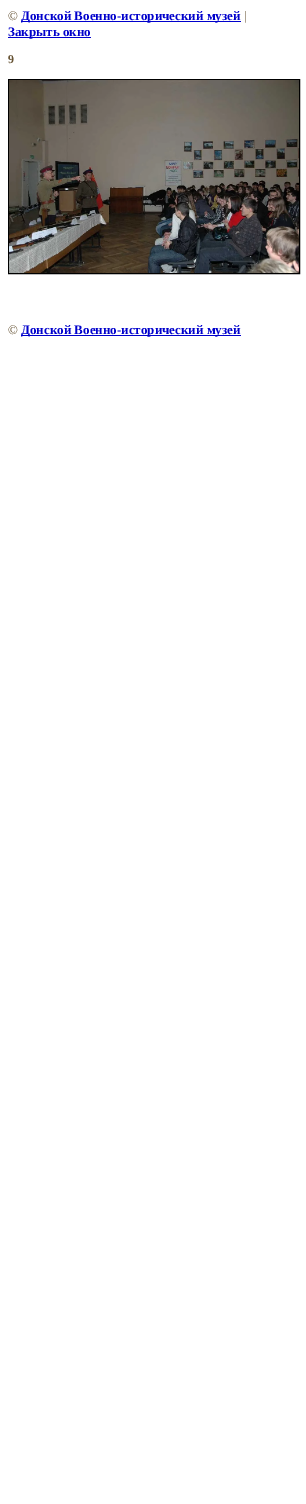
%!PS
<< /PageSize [306 1504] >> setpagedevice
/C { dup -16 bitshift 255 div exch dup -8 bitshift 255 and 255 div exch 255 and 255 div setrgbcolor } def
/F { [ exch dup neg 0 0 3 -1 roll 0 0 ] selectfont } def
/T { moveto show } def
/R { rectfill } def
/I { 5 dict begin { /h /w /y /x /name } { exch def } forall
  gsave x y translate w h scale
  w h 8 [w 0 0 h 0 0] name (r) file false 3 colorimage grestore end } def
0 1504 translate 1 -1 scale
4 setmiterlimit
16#FFFFFF C
0 0 306 1504 R
/LiberationSerif-Regular 13 F
16#675435 C
(©) 8 20 T
16#0000CC C
21 21 220 1 R
/LiberationSerif-Bold 13 F
(Донской Военно-исторический музей) 21 20 T
/LiberationSerif-Regular 13 F
16#675435 C
(|) 244 20 T
16#0000CC C
8 37 83 1 R
/LiberationSerif-Bold 13 F
(Закрыть окно) 8 36 T
/LiberationSerif-Bold 12 F
16#675435 C
(9) 8 63 T
16#000000 C
8.5 79.5 291 194 rectstroke
(1.rgb) 9 80 290 193 I
/LiberationSerif-Regular 13 F
16#675435 C
(©) 8 334 T
16#0000CC C
21 335 220 1 R
/LiberationSerif-Bold 13 F
(Донской Военно-исторический музей) 21 334 T
showpage
